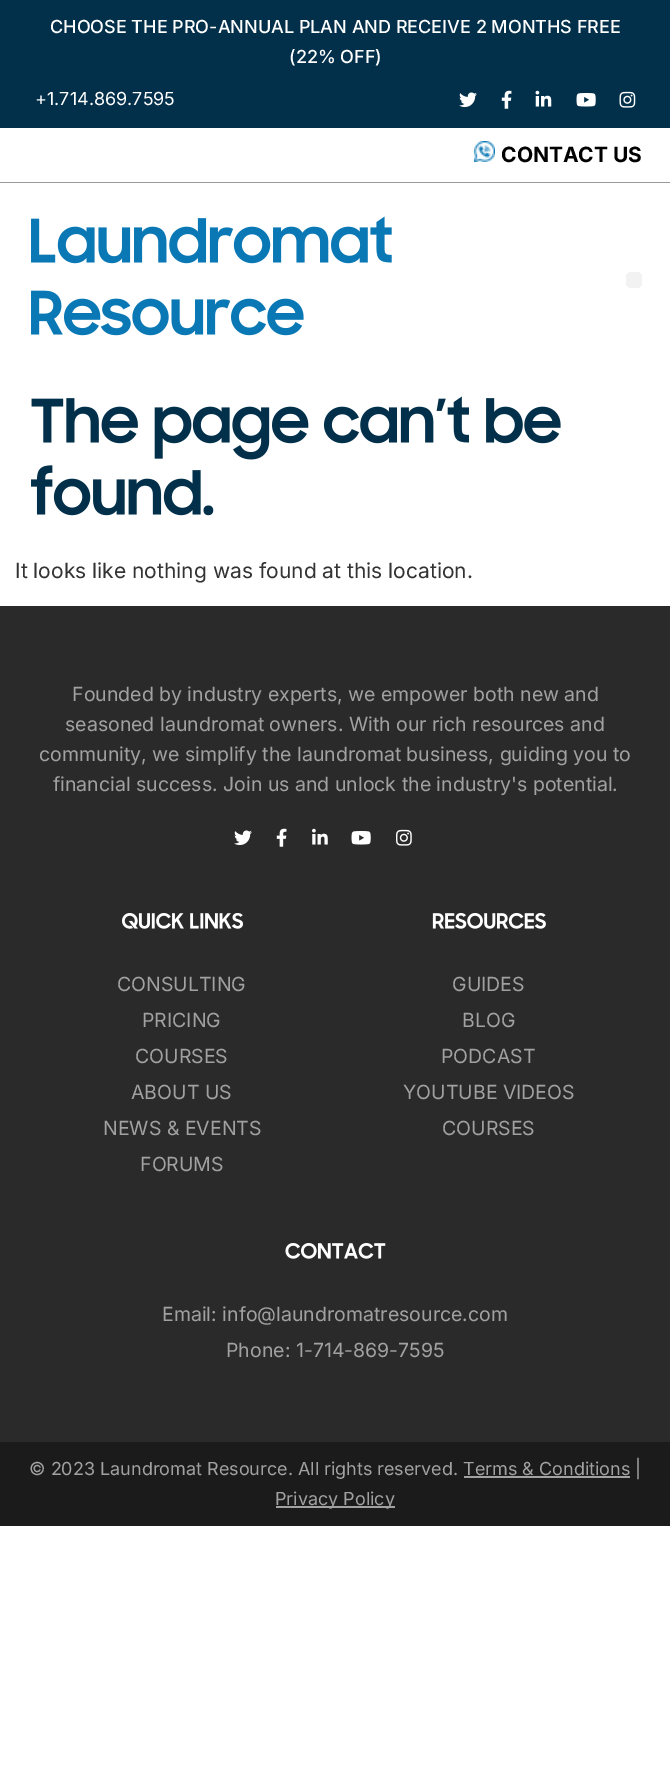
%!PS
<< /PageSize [670 1792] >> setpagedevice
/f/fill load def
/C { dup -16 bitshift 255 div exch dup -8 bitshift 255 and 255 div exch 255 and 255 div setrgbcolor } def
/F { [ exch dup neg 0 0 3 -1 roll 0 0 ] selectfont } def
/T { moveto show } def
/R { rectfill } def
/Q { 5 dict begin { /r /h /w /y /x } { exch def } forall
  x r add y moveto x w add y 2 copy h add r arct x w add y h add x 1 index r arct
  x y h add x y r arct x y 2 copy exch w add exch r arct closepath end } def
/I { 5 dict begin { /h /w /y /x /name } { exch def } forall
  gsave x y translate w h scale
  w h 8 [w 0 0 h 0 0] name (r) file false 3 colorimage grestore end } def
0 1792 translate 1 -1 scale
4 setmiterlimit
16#FFFFFF C
0 0 670 1792 R
16#02304A C
0 0 670 128 R
/Inter-Medium 18 F
16#FFFFFF C
(CHOOSE THE PRO-ANNUAL PLAN AND RECEIVE 2 MONTHS FREE) 50 33 T
(\(22% OFF\)) 289 63 T
/Inter-Regular 18 F
(+1.714.869.7595) 35 105 T
(1.rgb) 459 92 18 16 I
(2.rgb) 501 90 11 19 I
(3.rgb) 535 90 17 17 I
(4.rgb) 576 93 20 14 I
(5.rgb) 619 91 17 17 I
16#999999 C
0 182 670 1 R
(6.rgb) 474 141 21 21 I
/Inter-Bold 21 F
16#000000 C
(CONTACT US) 501 162 T
(7.rgb) 31 216 361 48 I
(8.rgb) 31 290 273 46 I
16#F2F2F2 C
626 272 16 16 5 Q f
(9.rgb) 31 396 530 64 I
(10.rgb) 31 465 183 51 I
/Inter-Regular 21 F
16#333333 C
(It looks like nothing was found at this location.) 15 578 T
16#2A2A2A C
0 606 670 836 R
/Inter-Regular 19.5 F
16#A1A1A1 C
(Founded by industry experts, we empower both new and) 72 701 T
(seasoned laundromat owners. With our rich resources and) 65 731 T
(community, we simplify the laundromat business, guiding you to) 39 761 T
(financial success. Join us and unlock the industry's potential.) 53 791 T
(11.rgb) 234 830 18 16 I
(12.rgb) 276 828 11 19 I
(13.rgb) 312 828 16 17 I
(14.rgb) 351 831 20 14 I
(15.rgb) 396 829 16 17 I
(16.rgb) 122 913 121 16 I
(CONSULTING) 117 991 T
(PRICING) 142 1027 T
(COURSES) 135 1063 T
(ABOUT US) 131 1099 T
(NEWS & EVENTS) 103 1135 T
(FORUMS) 140 1171 T
(17.rgb) 432 913 114 16 I
(GUIDES) 452 991 T
(BLOG) 462 1027 T
(PODCAST) 441 1063 T
(YOUTUBE VIDEOS) 403 1099 T
(COURSES) 442 1135 T
(18.rgb) 285 1243 101 16 I
(Email: info@laundromatresource.com) 162 1321 T
(Phone: 1-714-869-7595) 226 1357 T
16#1B1B1B C
0 1442 670 84 R
/Inter-Regular 18 F
16#A1A1A1 C
(© 2023 Laundromat Resource. All rights reserved. Terms & Conditions |) 29 1475 T
464 1476 166 2 R
276 1506 119 2 R
(Privacy Policy) 275 1505 T
showpage
